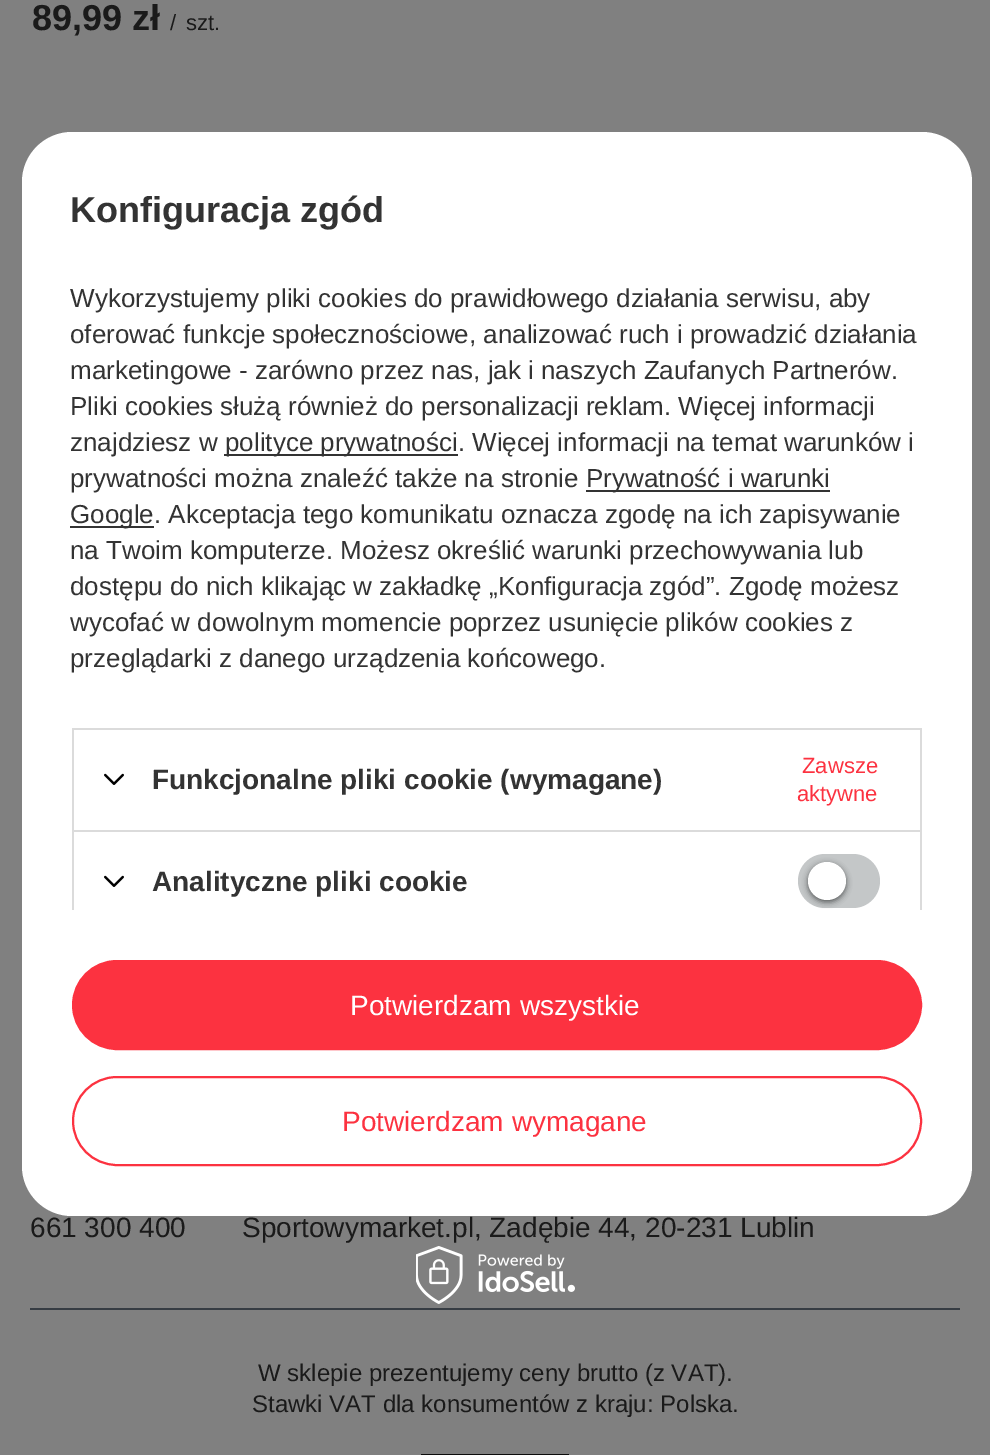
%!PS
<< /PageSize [990 1455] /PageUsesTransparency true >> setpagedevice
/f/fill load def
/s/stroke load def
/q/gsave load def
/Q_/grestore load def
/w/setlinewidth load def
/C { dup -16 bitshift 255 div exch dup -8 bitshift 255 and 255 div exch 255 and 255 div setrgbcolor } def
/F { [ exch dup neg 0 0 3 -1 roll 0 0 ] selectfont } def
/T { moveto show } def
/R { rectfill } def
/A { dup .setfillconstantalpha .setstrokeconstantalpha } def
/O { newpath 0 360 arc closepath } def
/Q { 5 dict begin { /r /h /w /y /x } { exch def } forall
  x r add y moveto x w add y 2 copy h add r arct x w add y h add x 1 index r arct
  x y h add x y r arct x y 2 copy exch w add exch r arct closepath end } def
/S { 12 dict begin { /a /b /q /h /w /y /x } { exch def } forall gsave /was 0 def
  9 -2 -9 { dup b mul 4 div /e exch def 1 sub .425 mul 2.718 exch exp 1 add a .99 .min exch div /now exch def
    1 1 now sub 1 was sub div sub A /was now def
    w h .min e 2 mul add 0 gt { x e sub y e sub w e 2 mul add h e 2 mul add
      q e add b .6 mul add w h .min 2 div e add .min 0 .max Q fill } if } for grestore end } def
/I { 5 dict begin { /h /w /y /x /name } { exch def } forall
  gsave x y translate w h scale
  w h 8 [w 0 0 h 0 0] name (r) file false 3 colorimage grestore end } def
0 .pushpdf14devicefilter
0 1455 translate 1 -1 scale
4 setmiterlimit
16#808080 C
0 0 990 1455 R
/LiberationSans-Bold 36 F
16#1A1A1A C
(89,99 zł) 32 30 T
/LiberationSans-Regular 22 F
(/) 170 30 T
(szt.) 186 30 T
16#FFFFFF C
22 132 950 1084 50 Q f
/LiberationSans-Bold 36 F
16#333333 C
(Konfiguracja zgód) 70 222 T
/LiberationSans-Regular 26 F
(Wykorzystujemy pliki cookies do prawidłowego działania serwisu, aby) 70 307 T
(oferować funkcje społecznościowe, analizować ruch i prowadzić działania) 70 343 T
(marketingowe - zarówno przez nas, jak i naszych Zaufanych Partnerów.) 70 379 T
(Pliki cookies służą również do personalizacji reklam. Więcej informacji) 70 415 T
(znajdziesz w) 70 451 T
224 454 234 2 R
(polityce prywatności. Więcej informacji na temat warunków i) 225 451 T
(prywatności można znaleźć także na stronie) 70 487 T
586 490 244 2 R
(Prywatność i warunki) 586 487 T
70 526 84 2 R
(Google. Akceptacja tego komunikatu oznacza zgodę na ich zapisywanie) 70 523 T
(na Twoim komputerze. Możesz określić warunki przechowywania lub) 70 559 T
(dostępu do nich klikając w zakładkę „Konfiguracja zgód”. Zgodę możesz) 70 595 T
(wycofać w dowolnym momencie poprzez usunięcie plików cookies z) 70 631 T
(przeglądarki z danego urządzenia końcowego.) 70 667 T
16#DBDBDB C
72 728 850 2 R
920 728 2 102 R
72 728 2 102 R
(1.rgb) 104 773 20 12 I
/LiberationSans-Bold 28 F
16#333333 C
(Funkcjonalne pliki cookie \(wymagane\)) 152 789 T
/LiberationSans-Regular 22 F
16#FC3240 C
(Zawsze) 802 773 T
(aktywne) 797 801 T
16#DBDBDB C
72 830 850 2 R
920 830 2 80 R
72 830 2 80 R
(1.rgb) 104 875 20 12 I
/LiberationSans-Bold 28 F
16#333333 C
(Analityczne pliki cookie) 152 891 T
16#C4C7C8 C
798 854 82 54 27 Q f
16#000000 C
808 864 38 38 19 3 .56 S
16#FFFFFF C
827 881 19 O f
16#FC3240 C
73 961 848 88 44 Q q f Q_
2 w
s
/LiberationSans-Regular 28 F
16#FFFFFF C
(Potwierdzam wszystkie) 350 1015 T
16#FC3240 C
73 1077 848 88 44 Q s
(Potwierdzam wymagane) 342 1131 T
(2.rgb) 416 1246 159 58 I
16#363C43 C
30 1308 930 2 R
16#1A1A1A C
(661 300 400) 30 1237 T
(Sportowymarket.pl, Zadębie 44, 20-231 Lublin) 242 1237 T
/LiberationSans-Regular 24 F
(W sklepie prezentujemy ceny brutto \(z VAT\).) 258 1381 T
(Stawki VAT dla konsumentów z kraju: Polska.) 252 1412 T
16#0C0C0C C
421 1454 148 1 R
.poppdf14devicefilter showpage
